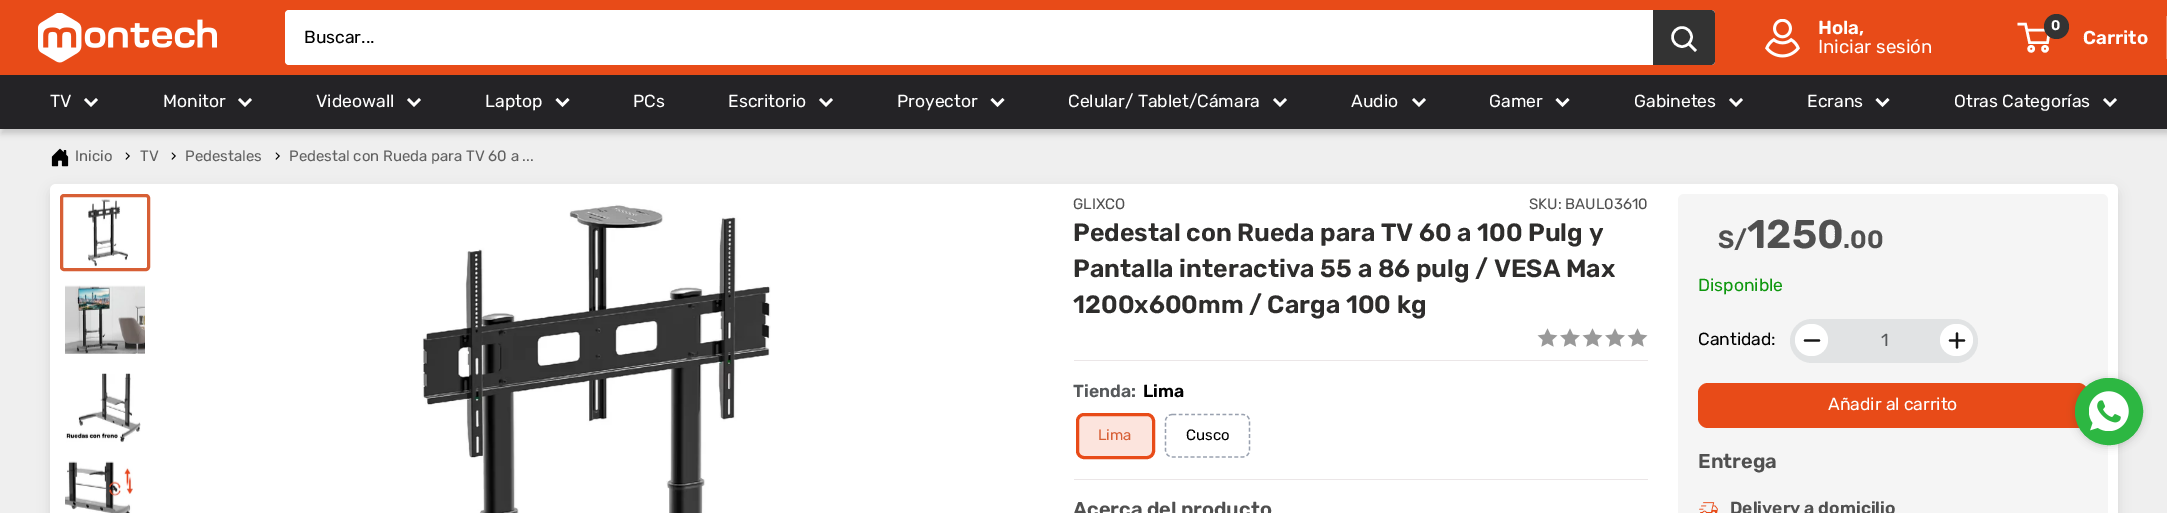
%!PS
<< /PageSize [2167 513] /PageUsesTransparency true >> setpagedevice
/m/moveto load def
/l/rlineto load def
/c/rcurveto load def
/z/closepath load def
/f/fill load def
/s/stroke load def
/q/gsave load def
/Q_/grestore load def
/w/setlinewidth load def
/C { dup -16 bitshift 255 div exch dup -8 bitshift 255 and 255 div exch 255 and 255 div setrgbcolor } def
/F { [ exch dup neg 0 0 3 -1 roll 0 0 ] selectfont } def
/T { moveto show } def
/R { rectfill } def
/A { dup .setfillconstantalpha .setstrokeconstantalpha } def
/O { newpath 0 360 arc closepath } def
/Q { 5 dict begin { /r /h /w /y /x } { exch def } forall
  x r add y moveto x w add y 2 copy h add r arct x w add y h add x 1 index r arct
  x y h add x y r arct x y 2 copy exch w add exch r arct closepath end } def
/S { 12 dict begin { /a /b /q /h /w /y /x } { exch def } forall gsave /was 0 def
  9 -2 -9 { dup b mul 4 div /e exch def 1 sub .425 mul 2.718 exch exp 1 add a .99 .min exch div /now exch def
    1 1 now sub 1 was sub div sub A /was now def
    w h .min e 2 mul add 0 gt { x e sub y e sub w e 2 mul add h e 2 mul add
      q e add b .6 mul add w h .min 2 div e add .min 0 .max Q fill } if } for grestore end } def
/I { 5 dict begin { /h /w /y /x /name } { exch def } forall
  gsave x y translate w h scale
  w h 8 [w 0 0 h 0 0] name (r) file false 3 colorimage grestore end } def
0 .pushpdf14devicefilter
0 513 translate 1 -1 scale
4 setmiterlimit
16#EFEFEF C
0 0 2167 513 R
16#E84B18 C
0 0 2167 75 R
(1.rgb) 38 13 179 50 I
16#FFFFFF C
285 10 1430 55 4 Q f
/Rubik-Regular 17.5 F
16#000000 C
(Buscar...) 304 43 T
16#333333 C
1653 10 m 58 0 l 2 0 4 2 4 4 c 0 47 l 0 2 -2 4 -4 4 c -58 0 l z f
16#FFFFFF C
2.5 w
2 setlinecap
1695 50 m -6 -6 l s
0 setlinecap
1682 37 9.5 O s
(2.rgb) 1765 19 35 39 I
/Rubik-SemiBold 18.75 F
(Hola,) 1818 34 T
/Rubik-Regular 18.75 F
(Iniciar sesión) 1818 53 T
16#EF815D C
2166 16 1 43 R
16#FFFFFF C
2031.2 48.8 2.5 O s
2045 48.8 2.5 O s
2026.5 30 m 23 0 l -2 12.5 l -18 0 l -4 -18.5 l -8 0 l s
16#333333 C
2056.5 26.5 12.5 O f
/Rubik-SemiBold 14 F
16#FFFFFF C
(0) 2051 30 T
/Rubik-SemiBold 18.75 F
(Carrito) 2083 44 T
16#000000 C
1 80 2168 54 0 3 .16 S
16#242326 C
0 75 2167 54 R
/Rubik-Regular 17.5 F
16#FFFFFF C
(TV) 50 107 T
2 setlinecap
96 100 m -5 5 l -5 -5 l s
(Monitor) 163 107 T
250 100 m -5 5 l -5 -5 l s
(Videowall) 316 107 T
419 100 m -5 5 l -5 -5 l s
(Laptop) 485 107 T
567.5 100 m -5 5 l -5 -5 l s
(PCs) 633 107 T
(Escritorio) 728 107 T
831 100 m -5 5 l -5 -5 l s
(Proyector) 897 107 T
1002.5 100 m -5 5 l -5 -5 l s
(Celular/ Tablet/Cámara) 1068 107 T
1285 100 m -5 5 l -5 -5 l s
(Audio) 1351 107 T
1424 100 m -5 5 l -5 -5 l s
(Gamer) 1489 107 T
1567.5 100 m -5 5 l -5 -5 l s
(Gabinetes) 1634 107 T
1741 100 m -5 5 l -5 -5 l s
(Ecrans) 1807 107 T
1887.5 100 m -5 5 l -5 -5 l s
(Otras Categorías) 1954 107 T
2115 100 m -5 5 l -5 -5 l s
(3.rgb) 51 148 18 19 I
/Rubik-Regular 15 F
16#606060 C
(Inicio) 75 161 T
16#000000 C
(›) 125 161 T
16#606060 C
(TV) 140 161 T
16#000000 C
(›) 171 161 T
16#606060 C
(Pedestales) 185 161 T
16#000000 C
(›) 275 161 T
16#606060 C
(Pedestal con Rueda para TV 60 a ...) 289 161 T
16#000000 C
50 189 2068 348 6 6 .1 S
16#FFFFFF C
50 184 2068 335 6 Q f
16#D75F35 C
3 w
0 setlinecap
61.5 195.5 87 74 2.5 Q s
(4.rgb) 88 199 40 68 I
(5.rgb) 65 285 80 69 I
(6.rgb) 65 373 76 70 I
(7.rgb) 65 461 68 52 I
(8.rgb) 422 204 349 309 I
16#505050 C
(GLIXCO) 1073 209 T
(SKU: BAUL03610) 1529 209 T
/Rubik-SemiBold 25 F
16#2E2D2C C
(Pedestal con Rueda para TV 60 a 100 Pulg y) 1073 241 T
(Pantalla interactiva 55 a 86 pulg / VESA Max) 1073 277 T
(1200x600mm / Carga 100 kg) 1073 313 T
(9.rgb) 1537 328 21 19 I
(10.rgb) 1560 328 20 19 I
(9.rgb) 1582 328 21 19 I
(10.rgb) 1605 328 20 19 I
(9.rgb) 1627 328 21 19 I
16#EBE6E7 C
1074 360 574 1 R
/Rubik-SemiBold 17.5 F
16#56595B C
(Tienda:) 1073 397 T
16#000000 C
(Lima) 1143 397 T
0.15 A
16#E84B18 C
1077.5 414.5 76 43 6.5 Q f
1 A
1077.5 414.5 76 43 6.5 Q s
/Rubik-Regular 15 F
16#D75F35 C
(Lima) 1098 440 T
16#99A1AF C
1.2 w
[3.75 2.5] 0 setdash
1172.5 414.5 m 70 0 l 4 0 7 3 7 6.5 c 0 29 l 0 4 -3 7 -7 7 c -70 0 l -4 0 -7 -3 -7 -7 c 0 -29 l 0 -3.5 3 -6.5 7 -6.5 c z s
16#000000 C
(Cusco) 1186 440 T
16#EBE6E7 C
1074 479 574 1 R
/Rubik-SemiBold 20 F
16#505050 C
(Acerca del producto) 1073 516 T
16#F5F5F5 C
1678 194 430 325 6 Q f
/Rubik-SemiBold 25 F
16#505050 C
(S/) 1718 248 T
/Rubik-SemiBold 40 F
(1250) 1747 248 T
/Rubik-SemiBold 25 F
(.00) 1843 248 T
/Rubik-Regular 17.5 F
16#0E970E C
(Disponible) 1698 291 T
16#000000 C
(Cantidad:) 1698 345 T
16#E1E3E4 C
1790 319 188 44 22 Q f
16#FFFFFF C
1795 324 33 32 16 Q f
16#171717 C
2.3 w
1 setlinecap
[] 0 setdash
1819 340.5 m -14 0 l s
16#56595B C
(1) 1881 346 T
16#FFFFFF C
1940 324 33 32 16 Q f
16#171717 C
1957 347.5 m 0 -14 l 1964 340.5 m -14 0 l s
16#E84B18 C
1698 383 390 45 10 Q f
16#FFFFFF C
(Añadir al carrito) 1828 410 T
/Rubik-SemiBold 20 F
16#505050 C
(Entrega) 1698 468 T
(11.rgb) 1699 502 19 11 I
/Rubik-SemiBold 17.5 F
(Delivery a domicilio) 1730 514 T
16#1B1B1B C
2075 379 68 67 33.5 4 .2 S
16#2DB742 C
2075.5 378.5 67 66 33 Q q f Q_
1 w
0 setlinecap
s
(12.rgb) 2089 391 40 40 I
.poppdf14devicefilter showpage
